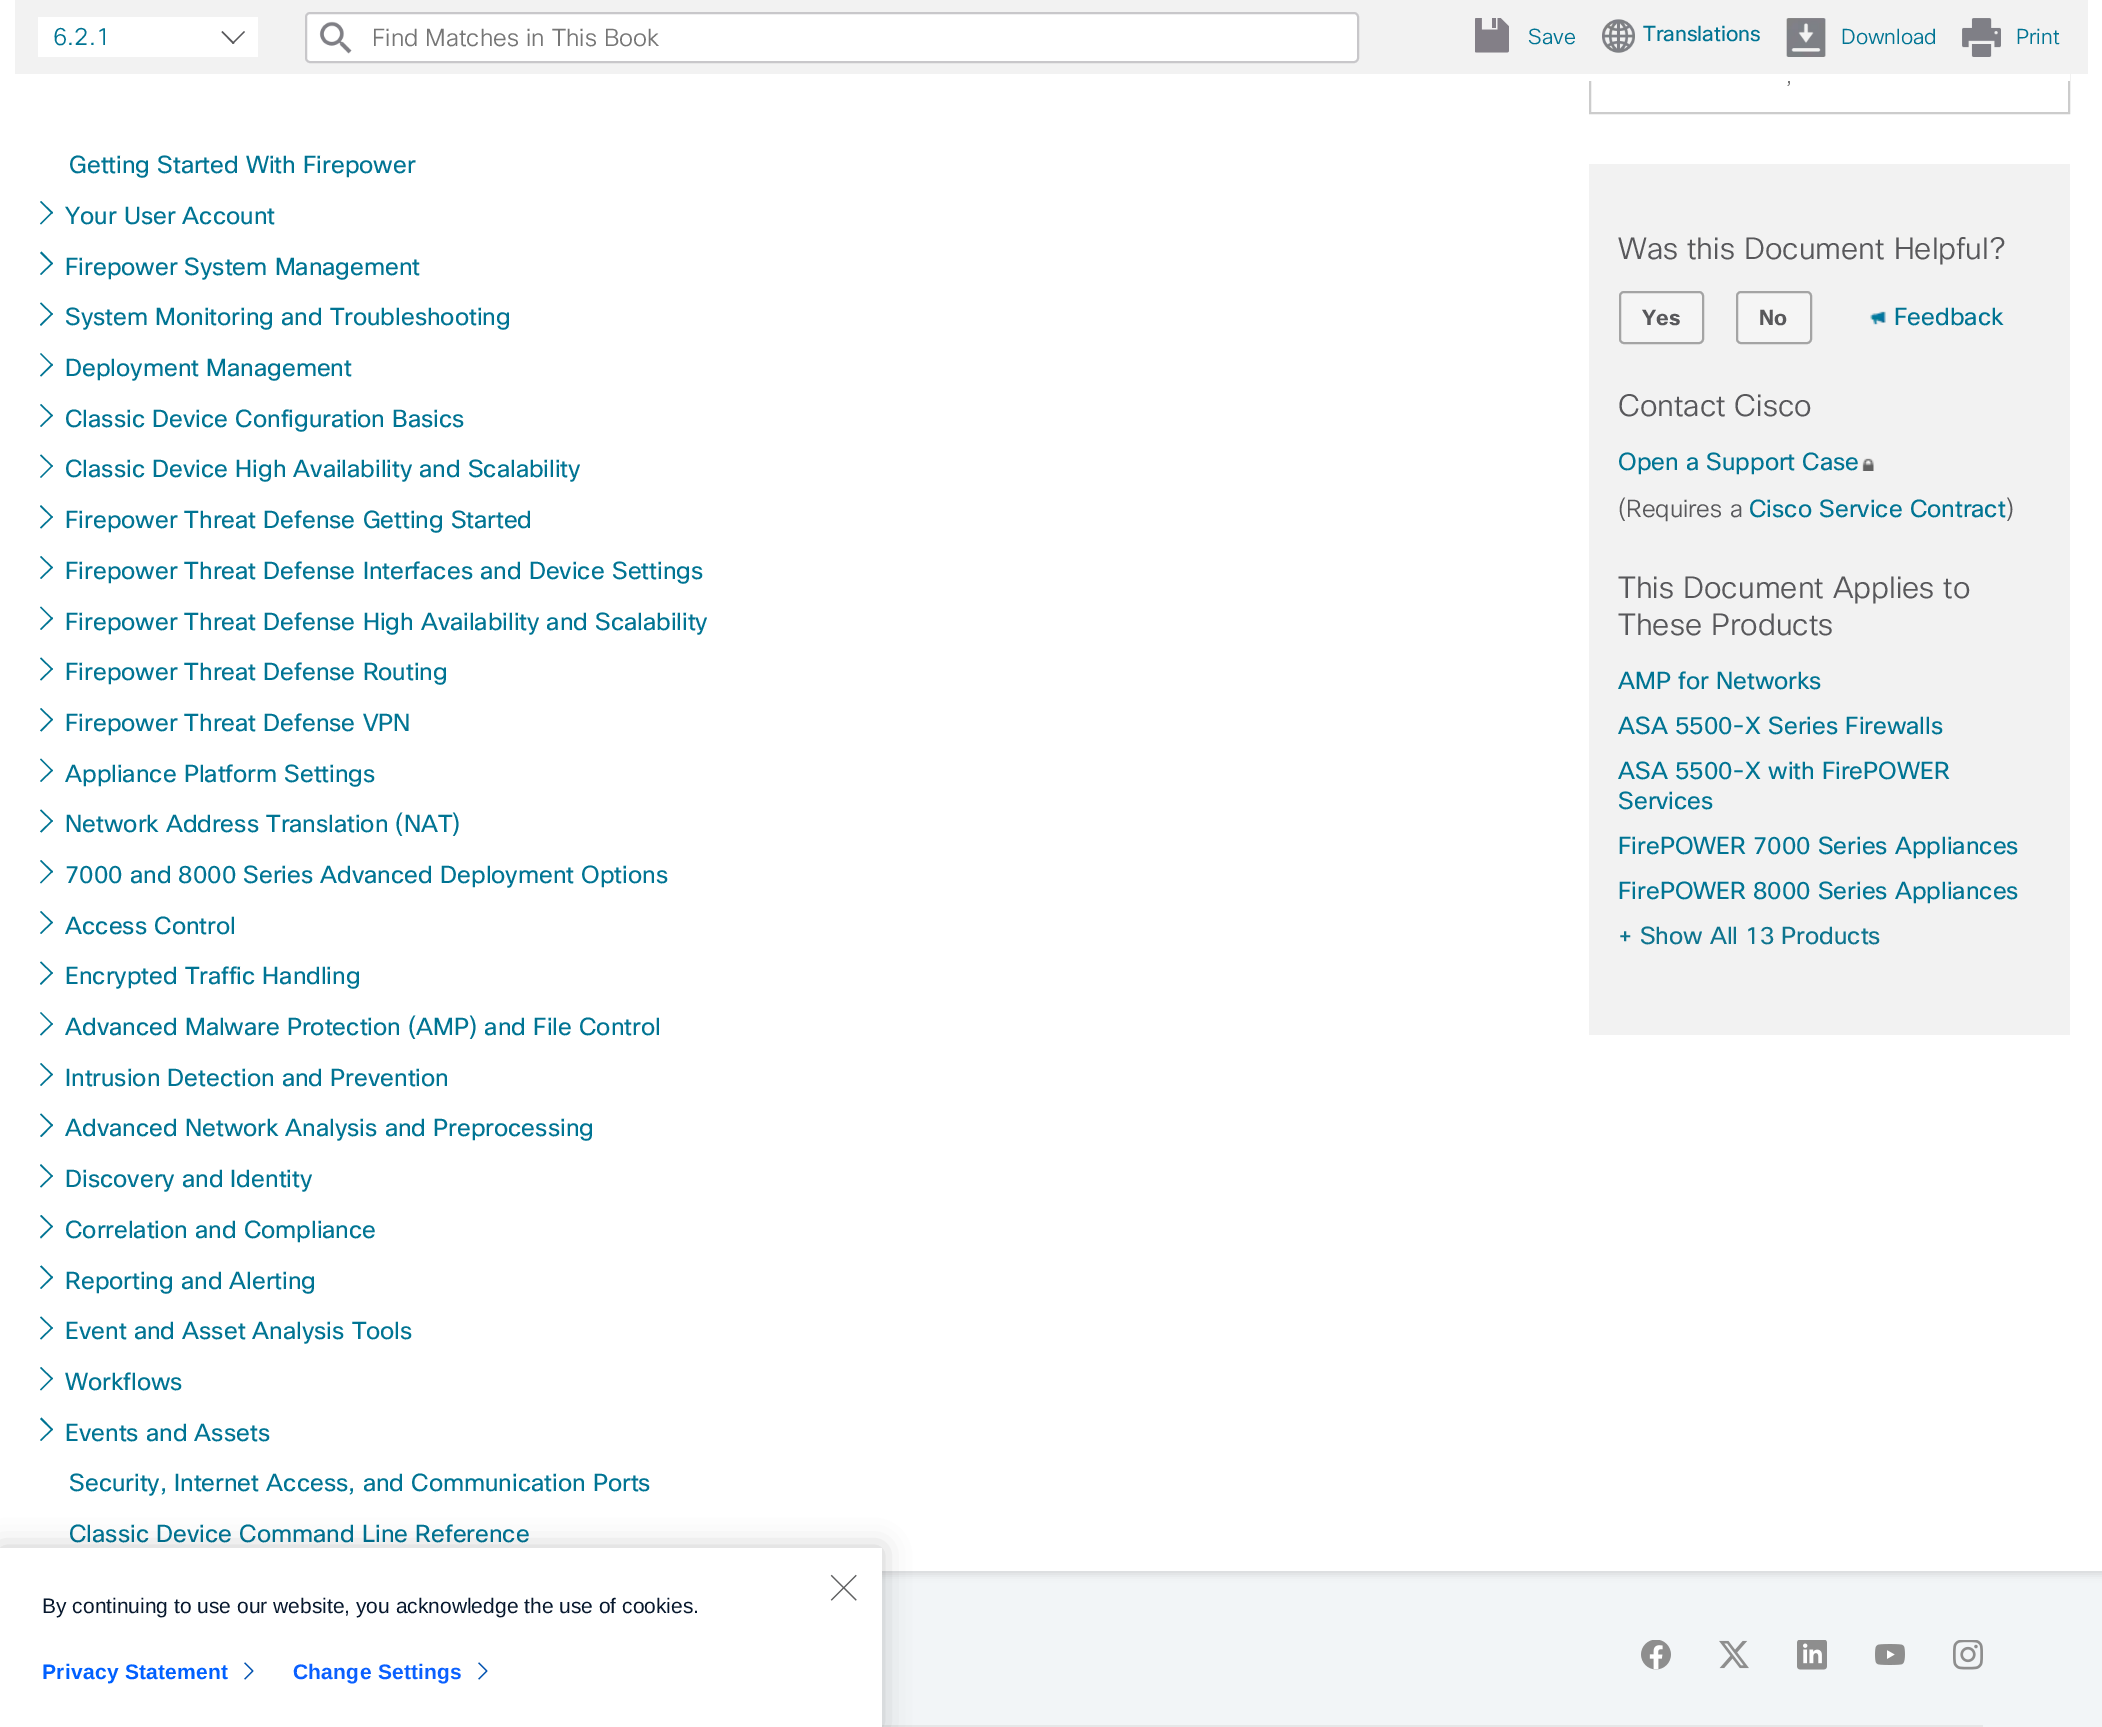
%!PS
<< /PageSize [2102 1727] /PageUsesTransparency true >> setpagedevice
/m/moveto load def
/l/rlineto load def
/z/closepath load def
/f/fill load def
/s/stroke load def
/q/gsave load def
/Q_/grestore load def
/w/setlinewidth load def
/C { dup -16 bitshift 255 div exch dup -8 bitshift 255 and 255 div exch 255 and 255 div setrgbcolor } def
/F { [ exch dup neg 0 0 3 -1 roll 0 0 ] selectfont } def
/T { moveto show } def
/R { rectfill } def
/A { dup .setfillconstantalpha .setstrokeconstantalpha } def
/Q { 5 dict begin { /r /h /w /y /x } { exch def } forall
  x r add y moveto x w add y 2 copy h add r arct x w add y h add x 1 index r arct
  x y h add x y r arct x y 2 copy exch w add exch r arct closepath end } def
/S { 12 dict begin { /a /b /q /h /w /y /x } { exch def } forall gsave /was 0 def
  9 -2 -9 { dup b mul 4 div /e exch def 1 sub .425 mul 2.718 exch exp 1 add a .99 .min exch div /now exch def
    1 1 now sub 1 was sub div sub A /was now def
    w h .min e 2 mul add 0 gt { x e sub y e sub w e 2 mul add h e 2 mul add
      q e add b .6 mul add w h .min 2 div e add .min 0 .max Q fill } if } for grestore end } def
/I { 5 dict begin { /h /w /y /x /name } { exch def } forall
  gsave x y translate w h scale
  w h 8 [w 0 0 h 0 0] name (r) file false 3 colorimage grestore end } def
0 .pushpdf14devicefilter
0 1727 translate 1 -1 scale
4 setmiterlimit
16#F2F5F7 C
0 0 2102 1727 R
16#000000 C
0 -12 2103 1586 0 4 .12 S
16#FFFFFF C
0 0 2102 1571 R
16#CCCCCC C
2 w
1590 40 479 73 rectstroke
16#F2F2F2 C
15 0 2073 74 R
/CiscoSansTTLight-Light 21 F
16#767676 C
(,) 1786 83 T
16#FFFFFF C
1589 74 481 7 R
38 17 220 40 R
/CiscoSansTTLight-Light 24 F
16#007493 C
(6.2.1) 53 45 T
16#58585B C
244 31 m 1 1 l -12 12 l -1 -1 l z f
222.5 31 m 12 12 l -1.5 1 l -11.5 -12 l z f
(1.rgb) 1475 18 34 35 I
/CiscoSansTTLight-Light 21 F
16#007493 C
(Save) 1528 44 T
(2.rgb) 1602 19 33 34 I
/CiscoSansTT-Regular 21 F
(Translations) 1643 41 T
(3.rgb) 1786 18 40 39 I
/CiscoSansTTLight-Light 21 F
(Download) 1841 44 T
(4.rgb) 1962 18 39 39 I
(Print) 2016 44 T
16#FFFFFF C
305 12 1054 51 5 Q f
(5.rgb) 319 21 33 33 I
16#C8C7CA C
306 13 1052 49 4 Q s
/CiscoSansTTLight-Light 24 F
16#767676 C
(Find Matches in This Book) 372 46 T
/CiscoSansTT-Regular 24 F
16#007493 C
(Getting Started With Firepower) 69 173 T
41 201 m 12 11.5 l -1 1.5 l -12 -12 l z f
52 211.5 m 1 1 l -12 12 l -1 -1 l z 41.5 251.5 m 11.5 12 l -1 1 l -12 -11.5 l z f
(Your User Account) 65 224 T
52 262.5 m 1 1 l -12 11.5 l -1 -1 l z 41 302.5 m 12 11.5 l -1 1 l -12 -11.5 l z f
(Firepower System Management) 65 275 T
52 313 m 1 1 l -12 12 l -1 -1.5 l z 41 353 m 12 12 l -1 1 l -12 -12 l z f
(System Monitoring and Troubleshooting) 65 325 T
52 363.5 m 1 1.5 l -12 11.5 l -1 -1 l z 41 404 m 12 11.5 l -1 1 l -12 -11.5 l z f
(Deployment Management) 65 376 T
52 414.5 m 1 1 l -12 11.5 l -1 -1 l z 41 454.5 m 12 11.5 l -1 1 l -12 -11.5 l z f
(Classic Device Configuration Basics) 65 427 T
52 465 m 1 1 l -12 12 l -1 -1 l z 41 505 m 12 12 l -1 1 l -12 -11.5 l z f
(Classic Device High Availability and Scalability) 65 477 T
52 516 m 1 1 l -12 11.5 l -1 -1 l z 41 556 m 12 11.5 l -1 1 l -12 -11.5 l z f
(Firepower Threat Defense Getting Started) 65 528 T
52 566.5 m 1 1 l -12 11.5 l -1 -1 l z 41 606.5 m 12 12 l -1 1 l -12 -12 l z f
(Firepower Threat Defense Interfaces and Device Settings) 65 579 T
52 617 m 1 1.5 l -12 11.5 l -1 -1 l z 41 657.5 m 12 11.5 l -1 1 l -12 -11.5 l z f
(Firepower Threat Defense High Availability and Scalability) 65 630 T
52 668 m 1 1 l -12 11.5 l -1 -1 l z 41 708 m 12 11.5 l -1 1 l -12 -11.5 l z f
(Firepower Threat Defense Routing) 65 680 T
52 718.5 m 1 1 l -11.5 12 l -1.5 -1 l z 41 758.5 m 12 12 l -1 1 l -12 -12 l z f
(Firepower Threat Defense VPN) 65 731 T
52 769.5 m 1 1 l -12 11.5 l -1 -1 l z 41 809.5 m 12 11.5 l -1 1 l -12 -11.5 l z f
(Appliance Platform Settings) 65 782 T
52 820 m 1 1 l -11.5 11.5 l -1.5 -1 l z 41 860 m 12 11.5 l -1 1.5 l -12 -12 l z f
(Network Address Translation \(NAT\)) 65 832 T
52 870.5 m 1 1 l -12 12 l -1 -1 l z 41 911 m 12 11.5 l -1 1 l -12 -11.5 l z f
(7000 and 8000 Series Advanced Deployment Options) 65 883 T
52 921.5 m 1 1 l -12 11.5 l -1 -1 l z 41 961.5 m 12 11.5 l -1 1 l -12 -11.5 l z f
(Access Control) 65 934 T
52 972 m 1 1 l -12 12 l -1 -1.5 l z 41 1012 m 12 12 l -1 1 l -12 -12 l z f
(Encrypted Traffic Handling) 65 984 T
52 1023 m 1 1 l -12 11.5 l -1 -1 l z 41 1063 m 12 11.5 l -1 1 l -12 -11.5 l z f
(Advanced Malware Protection \(AMP\) and File Control) 65 1035 T
52 1073.5 m 1 1 l -12 11.5 l -1 -1 l z 41 1113.5 m 12 11.5 l -1 1.5 l -12 -12 l z f
(Intrusion Detection and Prevention) 65 1086 T
52 1124 m 1 1 l -11.5 12 l -1.5 -1 l z 41 1164 m 12 12 l -1 1 l -12 -11.5 l z f
(Advanced Network Analysis and Preprocessing) 65 1136 T
52 1175 m 1 1 l -12 11.5 l -1 -1 l z 41.5 1215 m 11.5 11.5 l -1 1 l -12 -11.5 l z f
(Discovery and Identity) 65 1187 T
52 1225.5 m 1 1 l -12 12 l -1 -1.5 l z 41.5 1265.5 m 11.5 12 l -1 1 l -12 -12 l z f
(Correlation and Compliance) 65 1238 T
52 1276 m 1 1.5 l -12 11.5 l -1 -1 l z 41 1316.5 m 12 11.5 l -1 1 l -12 -11.5 l z f
(Reporting and Alerting) 65 1289 T
52 1327 m 1 1 l -12 11.5 l -1 -1 l z 41 1367 m 12 11.5 l -1 1 l -12 -11.5 l z f
(Event and Asset Analysis Tools) 65 1339 T
52 1377.5 m 1 1 l -12 12 l -1 -1 l z 41.5 1417.5 m 11.5 12 l -1 1 l -12 -11.5 l z f
(Workflows) 65 1390 T
52 1428.5 m 1 1 l -12 11.5 l -1 -1 l z f
(Events and Assets) 65 1441 T
(Security, Internet Access, and Communication Ports) 69 1491 T
(Classic Device Command Line Reference) 69 1542 T
16#F2F2F2 C
1589 164 481 871 R
/CiscoSansTTLight-Light 30 F
16#58585B C
(Was this Document Helpful?) 1618 259 T
16#F5F5F5 C
1620 292 83 51 4 Q q f Q_
16#A4A4A4 C
s
/CiscoSansTT-Bold 21 F
16#58585B C
(Yes) 1642 325 T
16#F5F5F5 C
1737 292 74 51 4 Q q f Q_
16#A4A4A4 C
s
16#58585B C
(No) 1759 325 T
(6.rgb) 1870 311 16 14 I
/CiscoSansTT-Regular 24 F
16#007493 C
(Feedback) 1894 325 T
/CiscoSansTTLight-Light 30 F
16#58585B C
(Contact Cisco) 1618 416 T
/CiscoSansTT-Regular 24 F
16#007493 C
(Open a Support Case) 1618 470 T
(7.rgb) 1862 458 12 13 I
/CiscoSansTTLight-Light 24 F
16#58585B C
(\(Requires a) 1618 517 T
/CiscoSansTT-Regular 24 F
16#007493 C
(Cisco Service Contract) 1749 517 T
/CiscoSansTTLight-Light 24 F
16#58585B C
(\)) 2006 517 T
/CiscoSansTTLight-Light 30 F
(This Document Applies to) 1618 598 T
(These Products) 1618 635 T
/CiscoSansTT-Regular 24 F
16#007493 C
(AMP for Networks) 1618 689 T
(ASA 5500-X Series Firewalls) 1618 734 T
(ASA 5500-X with FirePOWER) 1618 779 T
(Services) 1618 809 T
(FirePOWER 7000 Series Appliances) 1618 854 T
(FirePOWER 8000 Series Appliances) 1618 899 T
16#0E748E C
(+ Show All 13 Products) 1618 944 T
16#E6E7E8 C
882 1725 1101 2 R
16#000000 C
0 1548 882 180 0 13.5 .2 S
16#FFFFFF C
0 1548 882 179 R
(8.rgb) 830 1574 27 27 I
/LiberationSans-Regular 21 F
16#07182D C
(By continuing to use our website, you acknowledge the use of cookies.) 42 1613 T
/LiberationSans-Bold 21 F
16#0060FF C
42 1679 m .25 0 (Privacy Statement) ashow
(9.rgb) 244 1662 10 18 I
16#0A60FF C
293 1679 m .25 0 (Change Settings) ashow
(9.rgb) 478 1662 10 18 I
(10.rgb) 1641 1640 30 30 I
(11.rgb) 1719 1640 30 29 I
(12.rgb) 1797 1640 30 30 I
(13.rgb) 1875 1644 30 21 I
(14.rgb) 1953 1640 30 30 I
.poppdf14devicefilter showpage
